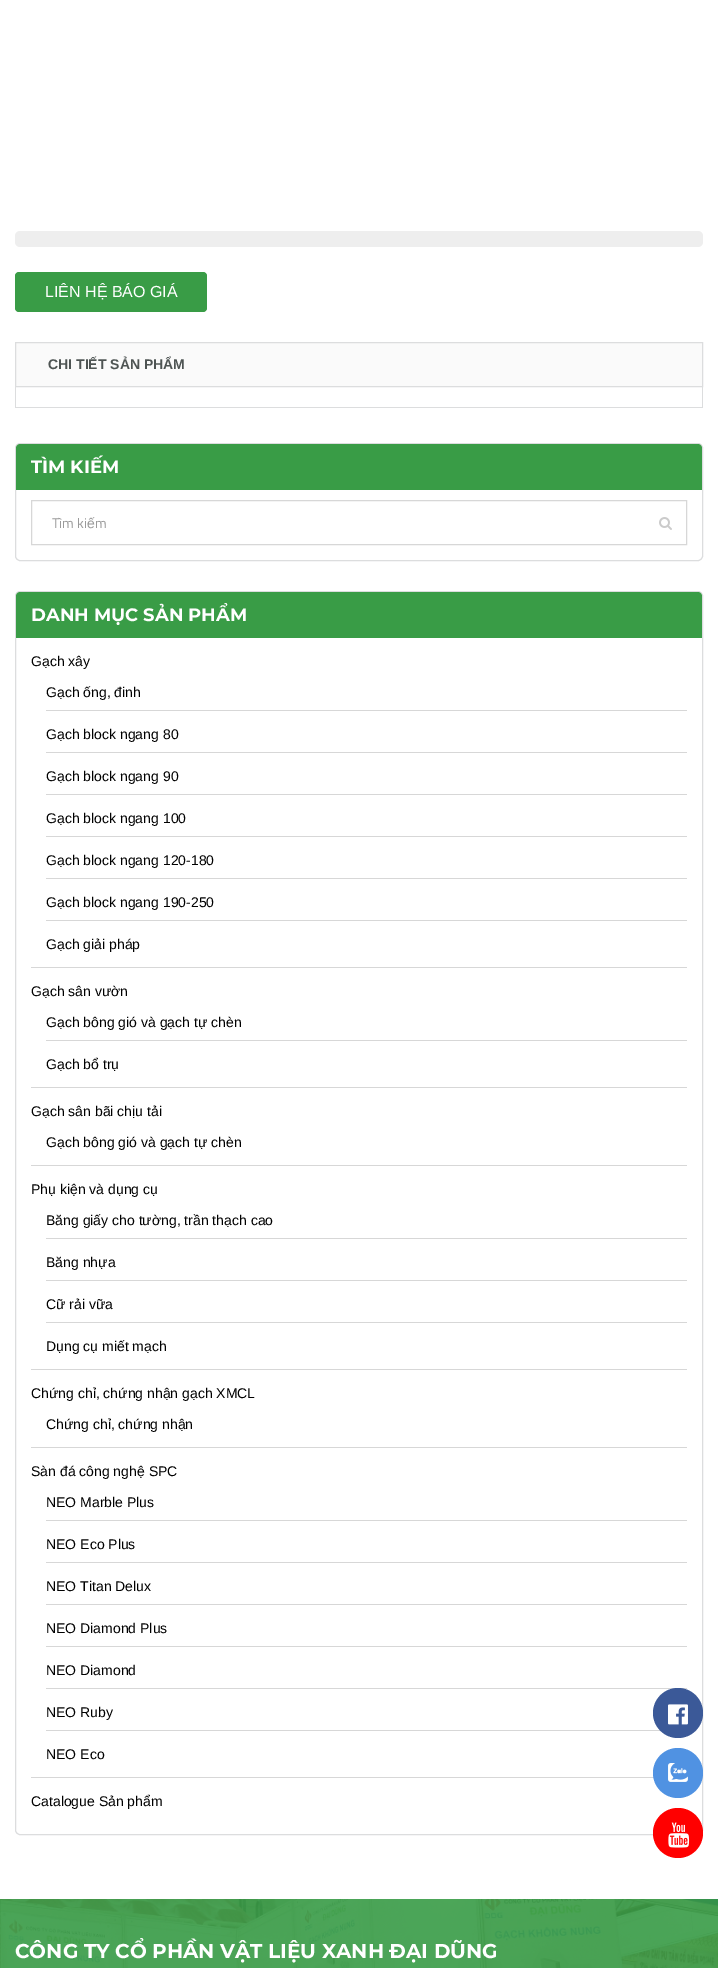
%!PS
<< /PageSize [718 1968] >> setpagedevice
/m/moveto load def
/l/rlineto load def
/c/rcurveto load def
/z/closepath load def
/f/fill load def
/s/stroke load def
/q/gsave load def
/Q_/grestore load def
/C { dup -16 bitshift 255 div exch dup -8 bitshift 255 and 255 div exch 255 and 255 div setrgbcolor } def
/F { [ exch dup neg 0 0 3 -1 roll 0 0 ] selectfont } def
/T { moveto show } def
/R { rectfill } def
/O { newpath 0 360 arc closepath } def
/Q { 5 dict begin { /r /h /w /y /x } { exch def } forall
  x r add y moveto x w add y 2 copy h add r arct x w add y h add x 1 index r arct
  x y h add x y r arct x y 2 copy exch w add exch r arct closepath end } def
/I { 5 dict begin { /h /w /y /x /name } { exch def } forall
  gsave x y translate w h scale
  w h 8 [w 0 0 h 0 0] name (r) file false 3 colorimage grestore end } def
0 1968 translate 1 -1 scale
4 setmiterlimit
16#FFFFFF C
0 0 718 1968 R
16#EEEEEE C
15 231 688 16 5 Q f
16#399C46 C
15 272 192 40 4 Q f
/LiberationSans-Regular 16 F
16#FFFFFF C
(LIÊN HỆ BÁO GIÁ) 45 297 T
16#FAFAFA C
15.5 342.5 m 687 0 l 0 44 l -687 0 l z q f Q_
16#DCDDDE C
s
/LiberationSans-Bold 14 F
16#4E5453 C
(CHI TIẾT SẢN PHẨM) 48 369 T
16#DCDDDE C
702 387 1 21 R
15 407 688 1 R
15 387 1 21 R
15.5 443.5 687 117 4.5 Q s
16#399C46 C
20 444 m 678 0 l 2 0 4 2 4 4 c 0 42 l -686 0 l 0 -42 l 0 -2 2 -4 4 -4 c z f
/Montserrat-Bold 18 F
16#FFFFFF C
(TÌM KIẾM) 31 473 T
16#D7D7D7 C
31.5 500.5 655 44 rectstroke
/Cairo-Regular 14 F
16#9A9A9A C
(Tìm ki) 52 528 T
/LiberationSans-Regular 14 F
(ế) 87 528 T
/Cairo-Regular 14 F
(m) 95 528 T
(1.rgb) 659 517 13 13 I
16#DCDDDE C
15.5 591.5 687 1243 4.5 Q s
16#399C46 C
20 592 m 678 0 l 2 0 4 2 4 4 c 0 42 l -686 0 l 0 -42 l 0 -2 2 -4 4 -4 c z f
/Montserrat-Bold 18 F
16#FFFFFF C
(DANH MỤC SẢN PHẨM) 31 621 T
16#D7D7D7 C
31 967 656 1 R
/LiberationSans-Regular 14 F
16#000000 C
(Gạch xây) 31 666 T
16#D7D7D7 C
46 710 641 1 R
16#000000 C
(Gạch ống, đinh) 46 697 T
16#D7D7D7 C
46 752 641 1 R
16#000000 C
(Gạch block ngang 80) 46 739 T
16#D7D7D7 C
46 794 641 1 R
16#000000 C
(Gạch block ngang 90) 46 781 T
16#D7D7D7 C
46 836 641 1 R
16#000000 C
(Gạch block ngang 100) 46 823 T
16#D7D7D7 C
46 878 641 1 R
16#000000 C
(Gạch block ngang 120-180) 46 865 T
16#D7D7D7 C
46 920 641 1 R
16#000000 C
(Gạch block ngang 190-250) 46 907 T
(Gạch giải pháp) 46 949 T
16#D7D7D7 C
31 1087 656 1 R
16#000000 C
(Gạch sân vườn) 31 996 T
16#D7D7D7 C
46 1040 641 1 R
16#000000 C
(Gạch bông gió và gạch tự chèn) 46 1027 T
(Gạch bổ trụ) 46 1069 T
16#D7D7D7 C
31 1165 656 1 R
16#000000 C
(Gạch sân bãi chịu tải) 31 1116 T
(Gạch bông gió và gạch tự chèn) 46 1147 T
16#D7D7D7 C
31 1369 656 1 R
16#000000 C
(Phụ kiện và dụng cụ) 31 1194 T
16#D7D7D7 C
46 1238 641 1 R
16#000000 C
(Băng giấy cho tường, trần thạch cao) 46 1225 T
16#D7D7D7 C
46 1280 641 1 R
16#000000 C
(Băng nhựa) 46 1267 T
16#D7D7D7 C
46 1322 641 1 R
16#000000 C
(Cữ rải vữa) 46 1309 T
(Dụng cụ miết mạch) 46 1351 T
16#D7D7D7 C
31 1447 656 1 R
16#000000 C
(Chứng chỉ, chứng nhận gạch XMCL) 31 1398 T
(Chứng chỉ, chứng nhận) 46 1429 T
16#D7D7D7 C
31 1777 623 1 R
16#000000 C
(Sàn đá công nghệ SPC) 31 1476 T
16#D7D7D7 C
46 1520 641 1 R
16#000000 C
(NEO Marble Plus) 46 1507 T
16#D7D7D7 C
46 1562 641 1 R
16#000000 C
(NEO Eco Plus) 46 1549 T
16#D7D7D7 C
46 1604 641 1 R
16#000000 C
(NEO Titan Delux) 46 1591 T
16#D7D7D7 C
46 1646 641 1 R
16#000000 C
(NEO Diamond Plus) 46 1633 T
16#D7D7D7 C
46 1688 641 1 R
16#000000 C
(NEO Diamond) 46 1675 T
16#D7D7D7 C
46 1730 615 1 R
16#000000 C
(NEO Ruby) 46 1717 T
(NEO Eco) 46 1759 T
(Catalogue Sản phẩm) 31 1806 T
(2.rgb) 0 1899 718 69 I
/Montserrat-Bold 20 F
16#FFFFFF C
(CÔNG TY CỔ PHẦN VẬT LIỆU XANH ĐẠI DŨNG) 15 1958 T
16#3B5998 C
678 1713 25 O f
(3.rgb) 668 1704 20 21 I
16#5092E2 C
678 1773 25 O f
(4.rgb) 668 1763 20 19 I
16#FF0000 C
678 1833 25 O f
(5.rgb) 668 1822 22 26 I
showpage
